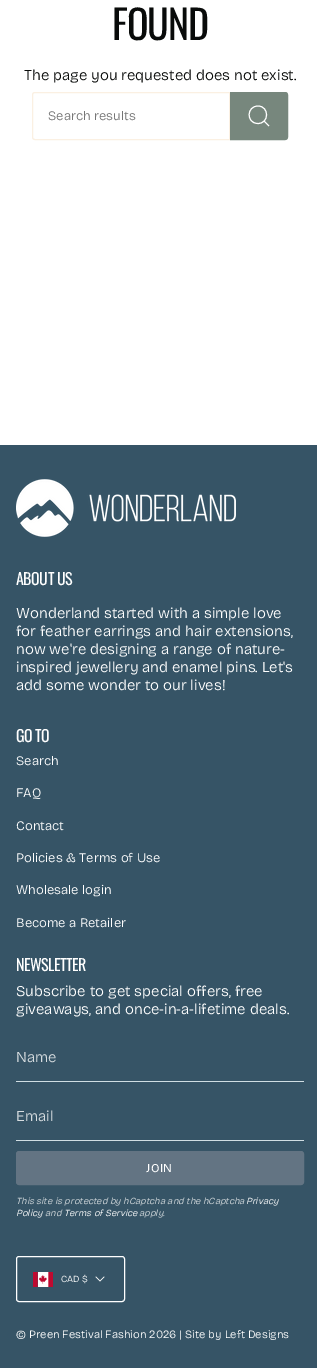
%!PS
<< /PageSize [317 1368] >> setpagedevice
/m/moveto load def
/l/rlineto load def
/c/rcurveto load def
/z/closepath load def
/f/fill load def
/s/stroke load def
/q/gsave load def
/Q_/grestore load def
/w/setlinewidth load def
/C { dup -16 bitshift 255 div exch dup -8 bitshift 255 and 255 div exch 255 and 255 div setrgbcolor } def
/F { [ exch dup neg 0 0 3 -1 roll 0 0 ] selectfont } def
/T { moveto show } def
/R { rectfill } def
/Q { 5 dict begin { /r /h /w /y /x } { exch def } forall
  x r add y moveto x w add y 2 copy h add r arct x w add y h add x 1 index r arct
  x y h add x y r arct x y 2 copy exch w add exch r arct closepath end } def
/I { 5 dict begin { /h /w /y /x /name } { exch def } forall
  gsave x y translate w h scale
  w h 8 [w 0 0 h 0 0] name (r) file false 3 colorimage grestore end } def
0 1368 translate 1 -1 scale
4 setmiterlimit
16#FFFFFF C
0 0 317 1368 R
/Oswald-Regular 40 F
16#090B0A C
112 40 m -1 0 (FOUND) ashow
/BricolageGrotesque-Light 15 F
(The page you requested does not exist.) 24 80 T
16#FBF0E2 C
35 92.5 m 194.5 0 l 0 47 l -194.5 0 l -1.5 0 -2.5 -1 -2.5 -2.5 c 0 -42 l 0 -1.5 1 -2.5 2.5 -2.5 c z s
/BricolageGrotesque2-Light 13.1 F
16#757575 C
(Search results) 48 120 T
16#77877D C
230.5 92.5 m 54.5 0 l 1.5 0 2.5 1 2.5 2.5 c 0 42 l 0 1.5 -1 2.5 -2.5 2.5 c -54.5 0 l z q f Q_
s
16#FFFFFF C
258 106 m 11.5 0 11.5 18 -.5 17.5 c -11.5 -.5 -11 -17.5 .5 -17.5 c z 264 121 m 5 5 l s
16#365466 C
0 445 317 923 R
(1.rgb) 16 479 220 58 I
/Oswald-Regular 16 F
16#FFFFFF C
16 585 m -.5 0 (ABOUT US) ashow
/BricolageGrotesque-Light 15 F
(Wonderland started with a simple love) 16 618 T
(for feather earrings and hair extensions,) 16 636 T
(now we're designing a range of nature-) 16 654 T
(inspired jewellery and enamel pins. Let's) 16 672 T
(add some wonder to our lives!) 16 690 T
/Oswald-Regular 16 F
16 742 m -.5 0 (GO TO) ashow
/BricolageGrotesque2-Light 13.1 F
(Search) 16 765 T
(FAQ) 16 797 T
(Contact) 16 830 T
(Policies & Terms of Use) 16 862 T
(Wholesale login) 16 894 T
(Become a Retailer) 16 927 T
/Oswald-Regular 16 F
16 971 m -.5 0 (NEWSLETTER) ashow
/BricolageGrotesque-Light 15 F
(Subscribe to get special offers, free) 16 996 T
(giveaways, and once-in-a-lifetime deals.) 16 1014 T
16#D0DEE3 C
16 1081 288 1 R
16#D7DDE0 C
(Name) 16 1062 T
16#D0DEE3 C
16 1140 288 1 R
16#D7DDE0 C
(Email) 16 1121 T
16#637483 C
16.5 1151.5 287 33 2.5 Q q f Q_
s
/BricolageGrotesque-Regular 12 F
16#FFFFFF C
146 1172 m .5 0 (JOIN) ashow
/BricolageGrotesque-LightItalic 9.4 F
16#D7DDE0 C
(This site is protected by hCaptcha and the hCaptcha) 16 1204 T
16#FFFFFF C
(Privacy) 246 1204 T
(Policy) 16 1216 T
16#D7DDE0 C
(and) 45 1216 T
16#FFFFFF C
(Terms of Service) 64 1216 T
16#D7DDE0 C
(apply.) 139 1216 T
16#FFFFFF C
16.5 1256.5 108 45 2.5 Q s
(2.rgb) 33 1272 20 15 I
/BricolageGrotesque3-Light 9.4 F
(CAD $) 61 1282 T
.7 w
1 setlinecap
1 setlinejoin
96 1277 m 4 4 l 4 -4 l s
/BricolageGrotesque3-Light 11.25 F
(© Preen Festival Fashion 2026 | Site by Left Designs) 16 1338 T
showpage
